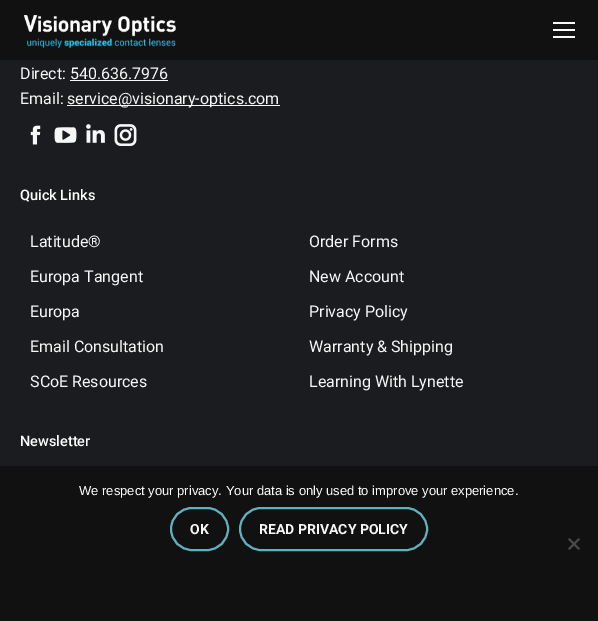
%!PS
<< /PageSize [598 621] >> setpagedevice
/m/moveto load def
/l/rlineto load def
/z/closepath load def
/f/fill load def
/s/stroke load def
/w/setlinewidth load def
/C { dup -16 bitshift 255 div exch dup -8 bitshift 255 and 255 div exch 255 and 255 div setrgbcolor } def
/F { [ exch dup neg 0 0 3 -1 roll 0 0 ] selectfont } def
/T { moveto show } def
/R { rectfill } def
/Q { 5 dict begin { /r /h /w /y /x } { exch def } forall
  x r add y moveto x w add y 2 copy h add r arct x w add y h add x 1 index r arct
  x y h add x y r arct x y 2 copy exch w add exch r arct closepath end } def
/I { 5 dict begin { /h /w /y /x /name } { exch def } forall
  gsave x y translate w h scale
  w h 8 [w 0 0 h 0 0] name (r) file false 3 colorimage grestore end } def
0 621 translate 1 -1 scale
4 setmiterlimit
16#1A1C20 C
0 0 598 621 R
16#111111 C
0 0 598 60 R
(1.rgb) 24 15 152 34 I
16#F7F7F7 C
553 22 22 2 R
553 29 22 2 R
553 36 22 2 R
/Roboto-Regular 16 F
(Direct: 540.636.7976) 20 79 T
70 80 98 1 R
(Email:) 20 104 T
67 105 213 1 R
(service@visionary-optics.com) 67 104 T
(2.rgb) 30 125 11 20 I
(3.rgb) 54 127 23 16 I
(4.rgb) 86 124 19 19 I
(5.rgb) 114 124 23 22 I
/Roboto-Medium 14.5 F
16#FFFFFF C
(Quick Links) 20 200 T
/Roboto-Regular 16 F
16#F7F7F7 C
(Latitude®) 30 247 T
(Order Forms) 309 247 T
(Europa Tangent) 30 282 T
(New Account) 309 282 T
(Europa) 30 317 T
(Privacy Policy) 309 317 T
(Email Consultation) 30 352 T
(Warranty & Shipping) 309 352 T
(SCoE Resources) 30 387 T
(Learning With Lynette) 309 387 T
/Roboto-Medium 14.5 F
16#FFFFFF C
(Newsletter) 20 446 T
16#111111 C
0 466 598 155 R
/LiberationSans-Regular 13 F
16#FFFFFF C
(We respect your privacy. Your data is only used to improve your experience.) 79 495 T
16#61B0BC C
2 w
171 508 57 42 21 Q s
/Roboto-Bold 14 F
16#F7F7F7 C
(OK) 190 534 T
16#61B0BC C
240 508 187 42 21 Q s
16#F7F7F7 C
(READ PRIVACY POLICY) 259 534 T
16#494949 C
578.5 538 m 1.5 1.5 l -10.5 10.5 l -1.5 -1.5 l z f
568 539.5 m 1.5 -1.5 l 10.5 10.5 l -1.5 1.5 l z f
showpage
